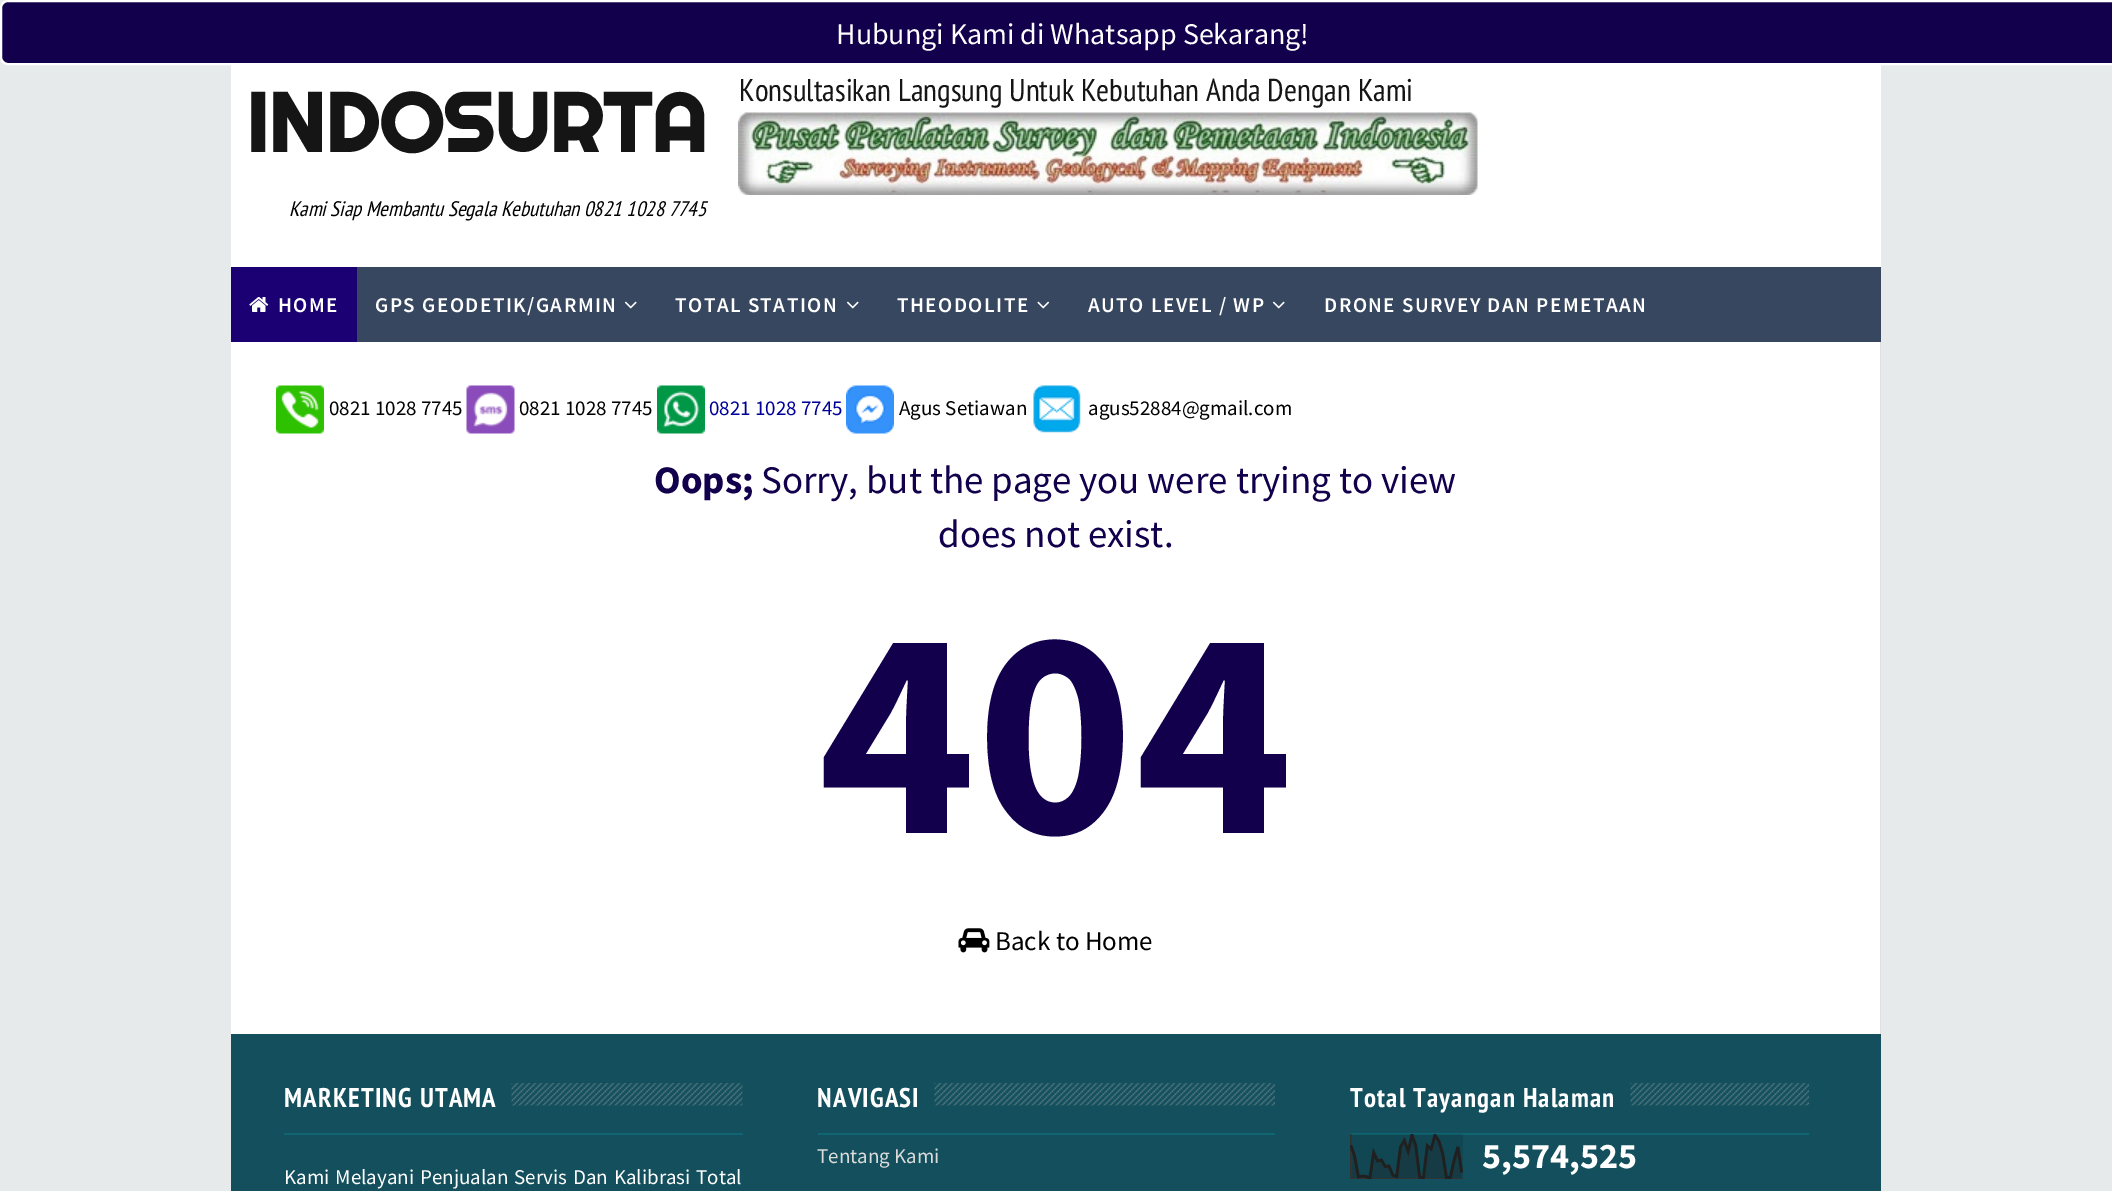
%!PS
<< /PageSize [2112 1191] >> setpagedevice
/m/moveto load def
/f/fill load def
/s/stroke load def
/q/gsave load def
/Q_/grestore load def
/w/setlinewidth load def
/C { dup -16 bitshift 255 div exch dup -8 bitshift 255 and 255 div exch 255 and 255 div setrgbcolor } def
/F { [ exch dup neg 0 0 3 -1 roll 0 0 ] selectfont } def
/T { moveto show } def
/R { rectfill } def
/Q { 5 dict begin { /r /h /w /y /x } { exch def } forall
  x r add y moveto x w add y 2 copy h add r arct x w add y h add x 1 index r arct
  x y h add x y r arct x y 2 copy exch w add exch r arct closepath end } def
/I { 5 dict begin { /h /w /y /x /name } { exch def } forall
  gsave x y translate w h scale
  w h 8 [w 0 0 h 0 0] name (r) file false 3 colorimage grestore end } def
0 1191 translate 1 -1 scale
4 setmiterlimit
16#E7EAEB C
0 0 2112 1191 R
16#12004D C
1 1 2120 63 7 Q q f Q_
16#FFFFFF C
2 w
s
/SourceSansPro-Regular 30 F
(Hubungi Kami di Whatsapp Sekarang!) 836 44 T
231 65 1650 969 R
/Righteous-Bold 82.5 F
16#151515 C
(INDOSURTA) 246 152 T
/PTSansNarrow-Italic 21 F
16#000000 C
(Kami Siap Membantu Segala Kebutuhan 0821 1028 7745) 289 216 T
/PTSansNarrow-Regular 31.5 F
16#151515 C
(Konsultasikan Langsung Untuk Kebutuhan Anda Dengan Kami) 739 101 T
(1.rgb) 738 112 740 83 I
16#374760 C
357 267 1524 75 R
16#1B0073 C
231 267 126 75 R
(2.rgb) 249 297 20 15 I
/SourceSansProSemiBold-SemiBold 21 F
16#FFFFFF C
278 312 m 1.5 0 (HOME) ashow
375 312 m 1.5 0 (GPS GEODETIK/GARMIN) ashow
(3.rgb) 624 301 13 8 I
675 312 m 1.5 0 (TOTAL STATION) ashow
(3.rgb) 846 301 13 8 I
897 312 m 1.5 0 (THEODOLITE) ashow
(4.rgb) 1037 301 13 8 I
1088 312 m 1.5 0 (AUTO LEVEL / WP) ashow
(3.rgb) 1272 301 13 8 I
1324 312 m 1.5 0 (DRONE SURVEY DAN PEMETAAN) ashow
16#E0E0E0 C
1880 342 1 692 R
(5.rgb) 276 385 48 49 I
/SourceSansPro-Regular 21 F
16#000000 C
(0821 1028 7745) 329 415 T
(6.rgb) 466 385 49 49 I
(0821 1028 7745) 519 415 T
(7.rgb) 657 385 48 49 I
16#000099 C
(0821 1028 7745) 709 415 T
(8.rgb) 846 385 48 49 I
16#000000 C
(Agus Setiawan) 899 415 T
(9.rgb) 1033 385 48 48 I
(agus52884@gmail.com) 1088 415 T
/SourceSansPro-Bold 39 F
16#12004D C
(Oops;) 654 493 T
/SourceSansPro-Regular 39 F
(Sorry, but the page you were trying to view) 761 493 T
(does not exist.) 938 547 T
/SourceSansPro-Bold 300 F
(404) 818 833 T
(10.rgb) 958 928 32 25 I
/SourceSansPro-Regular 27 F
16#000000 C
(Back to Home) 995 950 T
16#134F5C C
231 1034 1650 157 R
16#106572 C
284 1133 459 2 R
/PTSansNarrow-Bold 27 F
16#FFFFFF C
284 1107 m 1.2 0 (MARKETING UTAMA) ashow
(11.rgb) 511 1083 232 23 I
/SourceSansPro-Regular 21 F
284 1184 m 1.75 0 32 (Kami Melayani Penjualan Servis Dan Kalibrasi) widthshow
(Total) 696 1184 T
16#106572 C
818 1133 457 2 R
/PTSansNarrow-Bold 27 F
16#FFFFFF C
817 1107 m 1.2 0 (NAVIGASI) ashow
(12.rgb) 934 1083 341 23 I
/SourceSansPro-Regular 21 F
16#DBDBDB C
(Tentang Kami) 817 1163 T
16#106572 C
1350 1133 459 2 R
/PTSansNarrow-Bold 27 F
16#FFFFFF C
1350 1107 m 1.2 0 (Total Tayangan Halaman) ashow
(13.rgb) 1630 1083 179 23 I
(14.rgb) 1350 1134 113 45 I
/SourceSansPro-Bold 36 F
(5,574,525) 1482 1168 T
showpage
